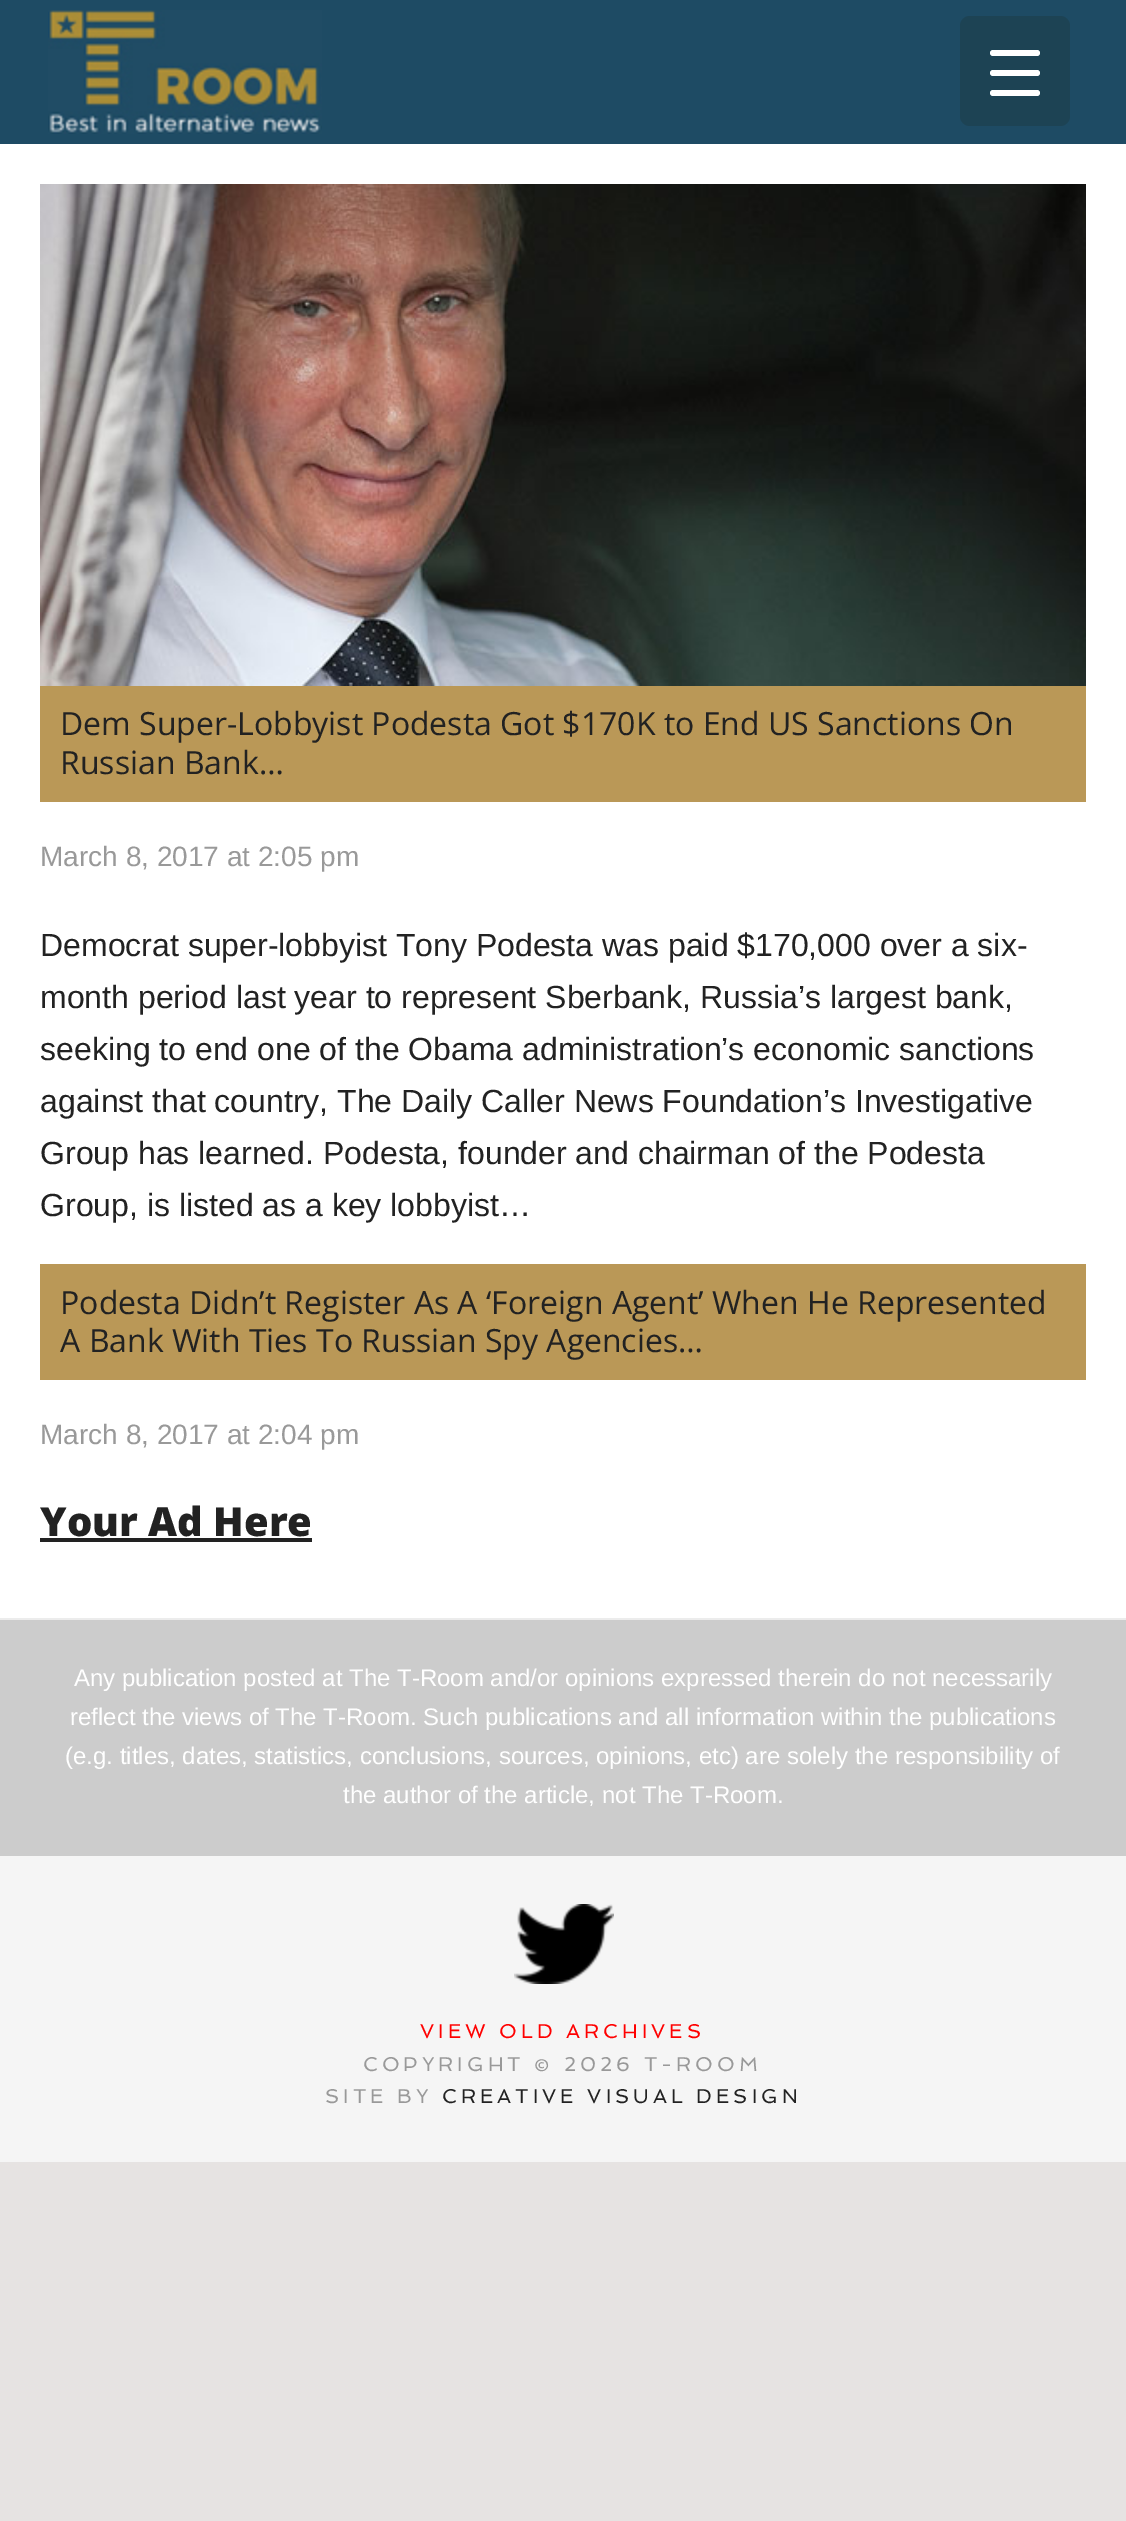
%!PS
<< /PageSize [1126 2521] >> setpagedevice
/m/moveto load def
/f/fill load def
/C { dup -16 bitshift 255 div exch dup -8 bitshift 255 and 255 div exch 255 and 255 div setrgbcolor } def
/F { [ exch dup neg 0 0 3 -1 roll 0 0 ] selectfont } def
/T { moveto show } def
/R { rectfill } def
/Q { 5 dict begin { /r /h /w /y /x } { exch def } forall
  x r add y moveto x w add y 2 copy h add r arct x w add y h add x 1 index r arct
  x y h add x y r arct x y 2 copy exch w add exch r arct closepath end } def
/I { 5 dict begin { /h /w /y /x /name } { exch def } forall
  gsave x y translate w h scale
  w h 8 [w 0 0 h 0 0] name (r) file false 3 colorimage grestore end } def
0 2521 translate 1 -1 scale
4 setmiterlimit
16#E6E3E2 C
0 0 1126 2521 R
16#1E4B64 C
0 0 1126 144 R
(1.rgb) 48 10 274 124 I
16#1D4354 C
960 16 110 110 10 Q f
16#FFFFFF C
990 70 50 6 3 Q f
990 50 50 6 3 Q f
990 90 50 6 3 Q f
0 144 1126 1474 R
(2.rgb) 40 184 1046 502 I
16#BA9857 C
40 686 1046 116 R
/OpenSans-Regular 32 F
16#222222 C
(Dem Super-Lobbyist Podesta Got $170K to End US Sanctions On) 60 735 T
(Russian Bank…) 60 774 T
/LiberationSans-Regular 28 F
16#999999 C
(March 8, 2017 at 2:05 pm) 40 866 T
/LiberationSans-Regular 32 F
16#222222 C
(Democrat super-lobbyist Tony Podesta was paid $170,000 over a six-) 40 956 T
(month period last year to represent Sberbank, Russia’s largest bank,) 40 1008 T
(seeking to end one of the Obama administration’s economic sanctions) 40 1060 T
(against that country, The Daily Caller News Foundation’s Investigative) 40 1112 T
(Group has learned. Podesta, founder and chairman of the Podesta) 40 1164 T
(Group, is listed as a key lobbyist…) 40 1216 T
16#BA9857 C
40 1264 1046 116 R
/OpenSans-Regular 32 F
16#222222 C
(Podesta Didn’t Register As A ‘Foreign Agent’ When He Represented) 60 1314 T
(A Bank With Ties To Russian Spy Agencies…) 60 1352 T
/LiberationSans-Regular 28 F
16#999999 C
(March 8, 2017 at 2:04 pm) 40 1444 T
/OpenSans-ExtraBold 40 F
16#222222 C
(Your Ad Here) 40 1536 T
40 1538 272 4 R
16#CCCCCC C
0 1620 1126 236 R
16#ECECEC C
0 1618 1126 2 R
/LiberationSans-Regular 24 F
16#FFFFFF C
(Any publication posted at The T-Room and/or opinions expressed therein do not necessarily) 74 1686 T
(reflect the views of The T-Room. Such publications and all information within the publications) 70 1725 T
(\(e.g. titles, dates, statistics, conclusions, sources, opinions, etc\) are solely the responsibility of) 65 1764 T
(the author of the article, not The T-Room.) 343 1803 T
16#F5F5F5 C
0 1856 1126 306 R
(3.rgb) 514 1904 100 80 I
/Spinnaker-Regular 20 F
16#FF0000 C
420 2038 m 4 0 (VIEW OLD ARCHIVES) ashow
16#999999 C
363 2071 m 4 0 (COPYRIGHT © 2026 T-ROOM) ashow
325 2103 m 4 0 (SITE BY) ashow
16#222222 C
442 2103 m 4 0 (CREATIVE VISUAL DESIGN) ashow
showpage
